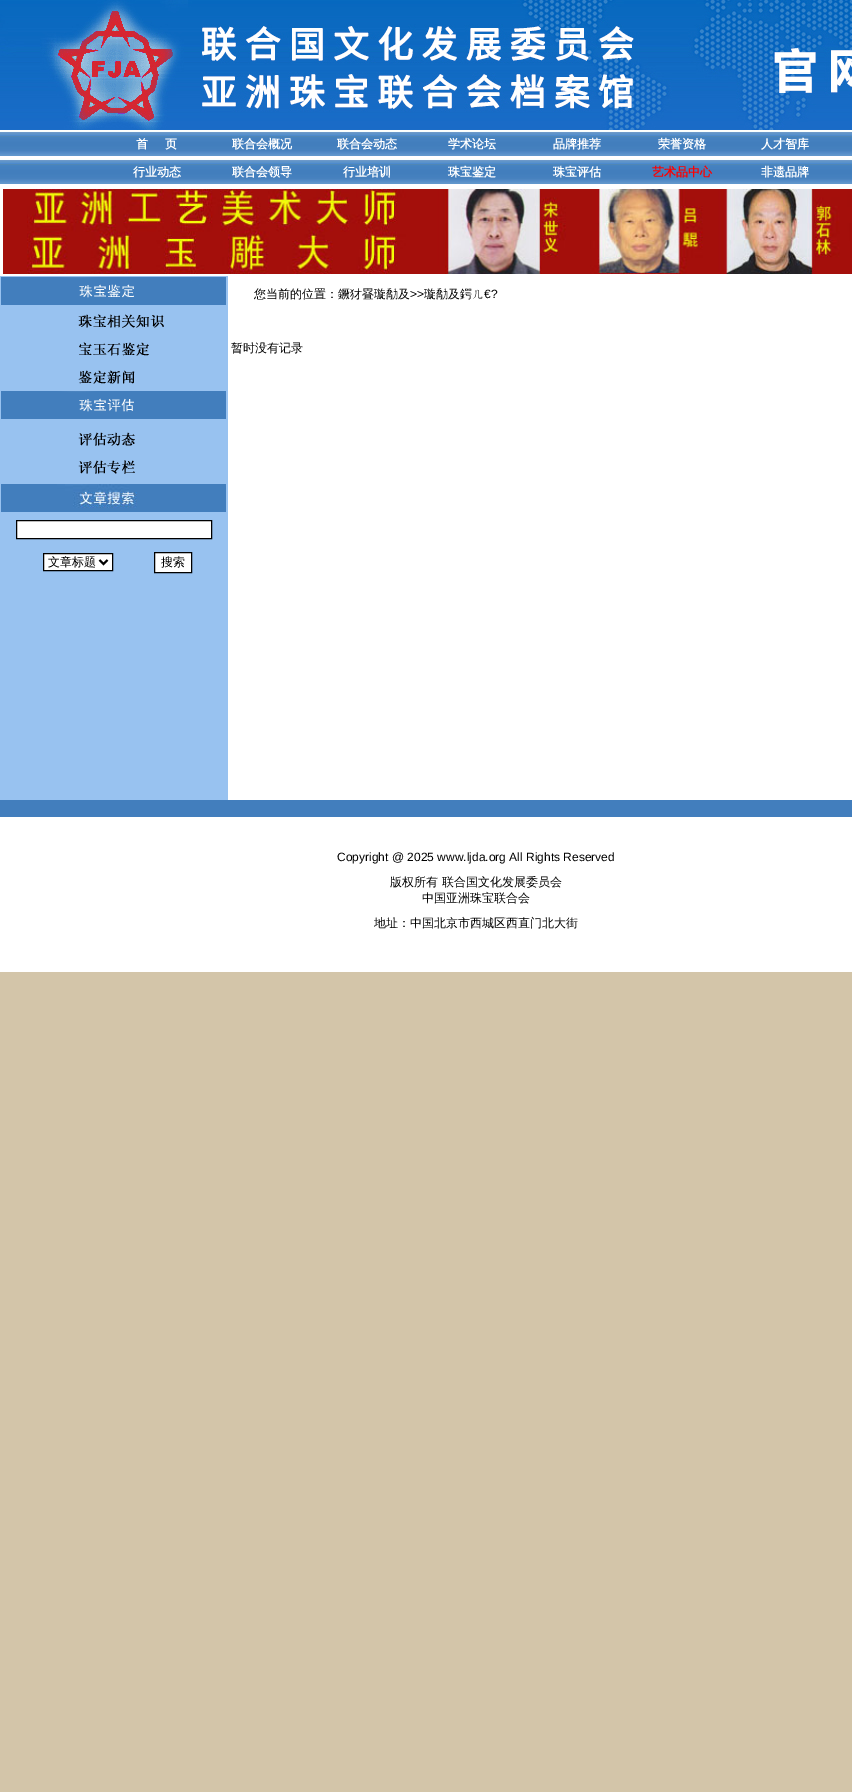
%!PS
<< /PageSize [852 1792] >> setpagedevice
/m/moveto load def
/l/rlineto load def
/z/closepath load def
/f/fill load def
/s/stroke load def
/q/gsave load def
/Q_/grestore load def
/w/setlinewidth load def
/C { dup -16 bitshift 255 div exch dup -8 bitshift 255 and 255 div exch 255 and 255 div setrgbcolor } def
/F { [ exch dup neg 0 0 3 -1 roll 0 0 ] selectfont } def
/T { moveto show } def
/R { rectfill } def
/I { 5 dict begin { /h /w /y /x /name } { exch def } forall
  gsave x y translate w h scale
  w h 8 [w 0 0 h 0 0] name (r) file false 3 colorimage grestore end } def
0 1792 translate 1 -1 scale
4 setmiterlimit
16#D3C5A9 C
0 0 852 1792 R
(1.rgb) 0 0 852 130 I
(2.rgb) 0 130 104 28 I
(3.rgb) 104 130 105 28 I
/WenQuanYiZenHei-Bold 12 F
16#FFFFFF C
(首) 136 148 T
(页) 165 148 T
(3.rgb) 209 130 105 28 I
(联合会概况) 232 148 T
(3.rgb) 314 130 105 28 I
(联合会动态) 337 148 T
(3.rgb) 419 130 105 28 I
(学术论坛) 448 148 T
(3.rgb) 524 130 105 28 I
(品牌推荐) 553 148 T
(3.rgb) 629 130 105 28 I
(荣誉资格) 658 148 T
(4.rgb) 734 130 102 28 I
(人才智库) 761 148 T
(5.rgb) 836 130 16 28 I
(2.rgb) 0 158 104 28 I
(3.rgb) 104 158 105 28 I
(行业动态) 133 176 T
(3.rgb) 209 158 105 28 I
(联合会领导) 232 176 T
(3.rgb) 314 158 105 28 I
(行业培训) 343 176 T
(3.rgb) 419 158 105 28 I
(珠宝鉴定) 448 176 T
(3.rgb) 524 158 105 28 I
(珠宝评估) 553 176 T
(3.rgb) 629 158 105 28 I
16#FF0000 C
(艺术品中心) 652 176 T
(4.rgb) 734 158 102 28 I
16#FFFFFF C
(非遗品牌) 761 176 T
(5.rgb) 836 158 16 28 I
0 186 852 90 R
(6.rgb) 3 189 849 85 I
228 276 624 524 R
/WenQuanYiZenHei-Medium 12 F
16#000000 C
(您当前的位置：鐝犲疂璇勪及) 254 298 T
/LiberationSans-Regular 12 F
(>>) 410 298 T
/WenQuanYiZenHei-Medium 12 F
(璇勪及鍔ㄦ) 424 298 T
/LiberationSans-Regular 12 F
(€?) 484 298 T
/WenQuanYiZenHei-Medium 12 F
(暂时没有记录) 231 352 T
16#98C2F0 C
0 276 228 524 R
(7.rgb) 1 277 225 28 I
(8.rgb) 78 314 86 14 I
(9.rgb) 79 342 70 14 I
(10.rgb) 78 370 57 14 I
(11.rgb) 1 391 225 28 I
(12.rgb) 78 432 57 14 I
(13.rgb) 78 460 57 14 I
(14.rgb) 1 484 225 28 I
16#FFFFFF C
16.5 520.5 m 195 0 l 0 18 l -195 0 l z q f Q_
16#000000 C
s
16#FFFFFF C
43.5 553.5 m 69 0 l 0 17 l -69 0 l z q f Q_
16#000000 C
s
2 w
99.5 560 m 4 4 l 4 -4 l s
(文章标题) 48 566 T
16#FFFFFF C
154.5 552.5 m 37 0 l 0 20 l -37 0 l z q f Q_
16#000000 C
1 w
s
(搜索) 161 566 T
16#427EBD C
0 800 852 17 R
16#FFFFFF C
0 817 852 155 R
/LiberationSans-Regular 12 F
16#000000 C
(Copyright @ 2025 www.ljda.org All Rights Reserved) 337 861 T
/WenQuanYiZenHei-Medium 12 F
(版权所有 联合国文化发展委员会) 390 886 T
(中国亚洲珠宝联合会) 422 902 T
(地址：中国北京市西城区西直门北大街) 374 927 T
showpage
